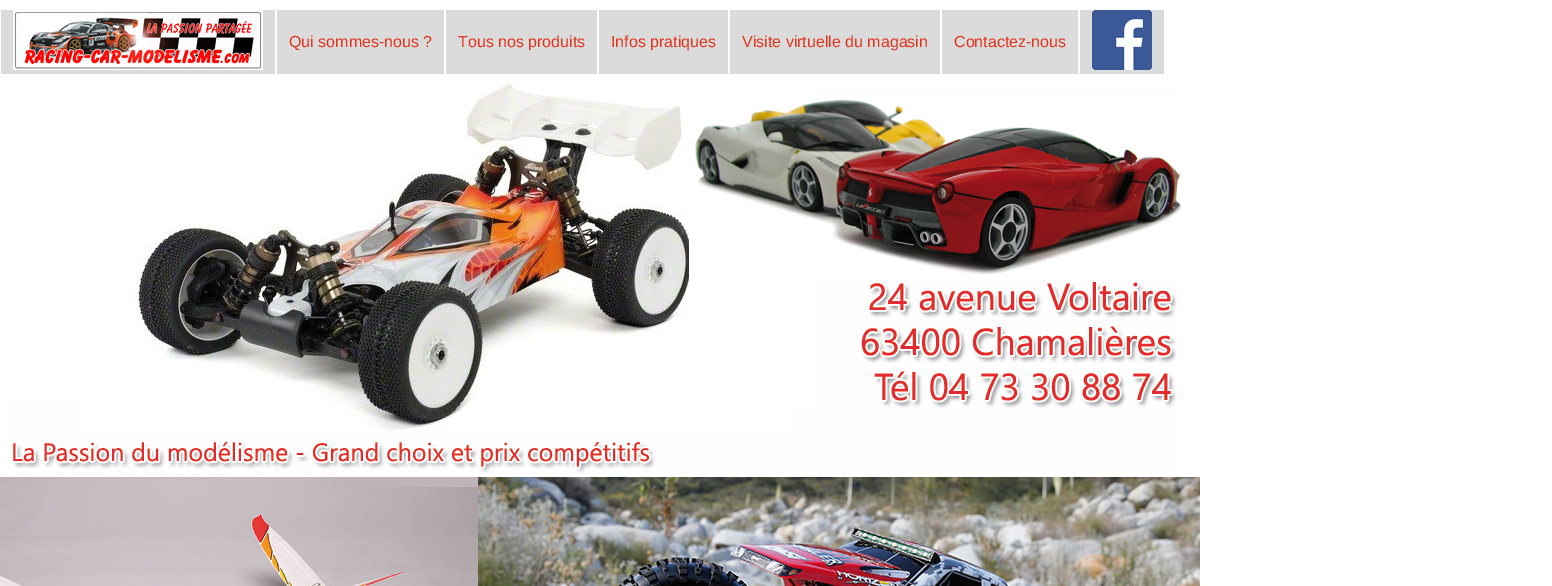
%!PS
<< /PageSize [1552 586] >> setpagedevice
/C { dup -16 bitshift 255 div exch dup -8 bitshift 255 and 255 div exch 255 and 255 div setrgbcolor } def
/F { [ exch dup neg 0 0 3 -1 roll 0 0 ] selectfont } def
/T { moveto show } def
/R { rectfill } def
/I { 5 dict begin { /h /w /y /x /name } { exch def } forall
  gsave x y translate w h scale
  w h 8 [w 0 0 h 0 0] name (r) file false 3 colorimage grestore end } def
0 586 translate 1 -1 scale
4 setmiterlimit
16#FFFFFF C
0 0 1552 586 R
16#DBDBDB C
1 10 274 64 R
(1.rgb) 13 10 250 60 I
277 10 167 64 R
/LiberationSans-Regular 16 F
16#E2341D C
(Qui sommes-nous ?) 289 47 T
16#DBDBDB C
446 10 151 64 R
16#E2341D C
(Tous nos produits) 458 47 T
16#DBDBDB C
599 10 129 64 R
16#E2341D C
(Infos pratiques) 611 47 T
16#DBDBDB C
730 10 210 64 R
16#E2341D C
(Visite virtuelle du magasin) 742 47 T
16#DBDBDB C
942 10 136 64 R
16#E2341D C
(Contactez-nous) 954 47 T
16#DBDBDB C
1080 10 84 64 R
(2.rgb) 1092 10 60 60 I
(3.rgb) 9 83 1172 391 I
(4.rgb) 0 477 1200 109 I
showpage
